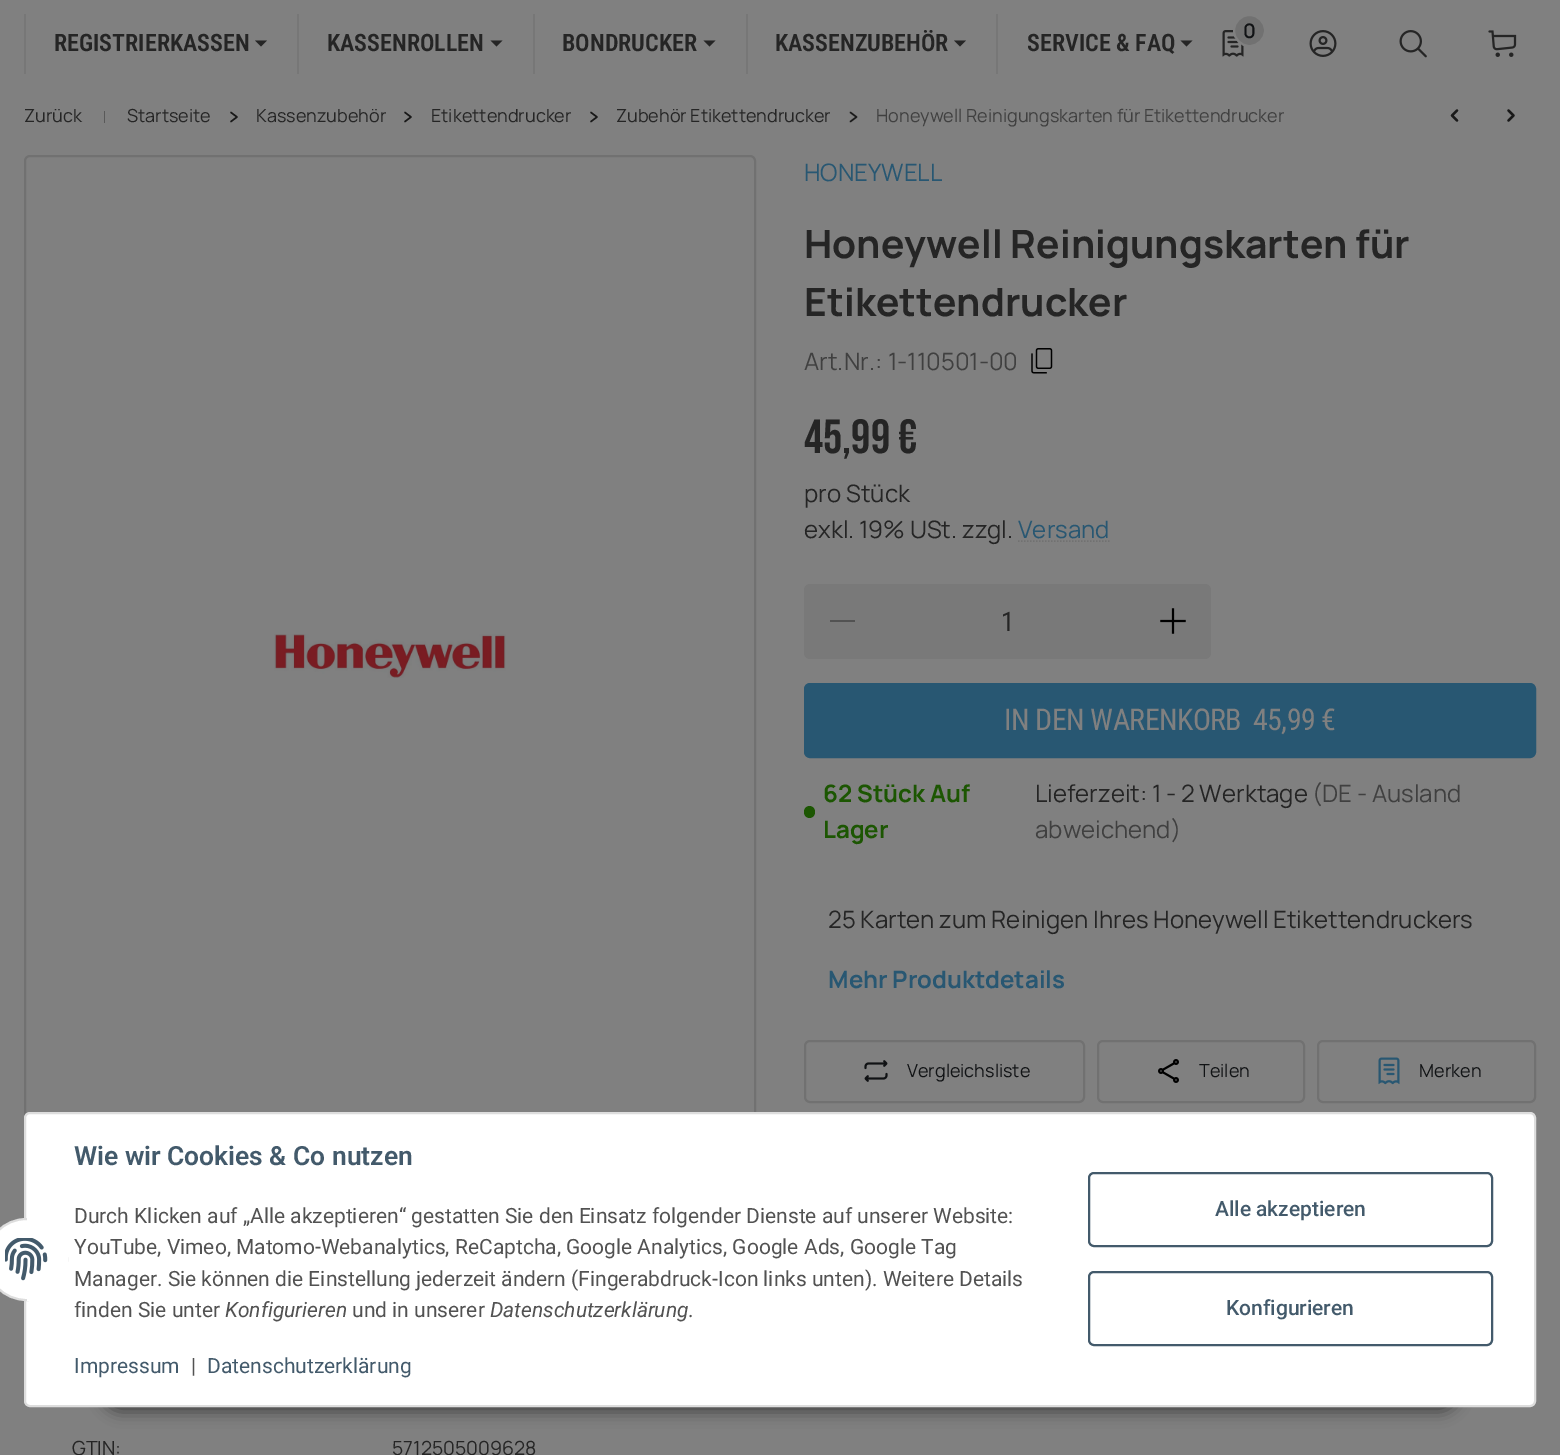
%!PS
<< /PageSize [1560 1455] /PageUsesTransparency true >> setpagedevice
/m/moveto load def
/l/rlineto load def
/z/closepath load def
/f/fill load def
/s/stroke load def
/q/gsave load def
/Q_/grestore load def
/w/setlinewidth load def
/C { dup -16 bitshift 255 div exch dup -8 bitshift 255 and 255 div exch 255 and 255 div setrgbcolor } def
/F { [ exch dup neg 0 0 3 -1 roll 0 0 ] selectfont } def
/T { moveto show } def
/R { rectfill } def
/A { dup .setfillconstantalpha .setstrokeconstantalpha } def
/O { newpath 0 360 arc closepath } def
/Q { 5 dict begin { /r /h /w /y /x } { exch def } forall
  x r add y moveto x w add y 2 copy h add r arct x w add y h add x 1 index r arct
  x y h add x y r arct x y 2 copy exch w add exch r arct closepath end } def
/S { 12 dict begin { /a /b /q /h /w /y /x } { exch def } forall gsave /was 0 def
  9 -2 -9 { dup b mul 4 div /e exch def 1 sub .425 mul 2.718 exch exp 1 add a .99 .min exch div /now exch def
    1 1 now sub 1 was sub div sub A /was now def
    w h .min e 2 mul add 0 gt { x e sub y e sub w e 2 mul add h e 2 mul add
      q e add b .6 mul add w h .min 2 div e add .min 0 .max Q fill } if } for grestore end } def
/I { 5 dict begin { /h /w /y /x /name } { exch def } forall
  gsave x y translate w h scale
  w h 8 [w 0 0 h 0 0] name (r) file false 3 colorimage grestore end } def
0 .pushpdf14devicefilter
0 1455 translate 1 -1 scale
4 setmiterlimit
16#808080 C
0 0 1560 1455 R
16#777777 C
24 14 2 60 R
/RobotoCondensed-SemiBold 24 F
16#252525 C
(REGISTRIERKASSEN) 54 51 T
255 40.5 m 12 0 l -6 6 l z f
16#777777 C
297 14 2 60 R
16#252525 C
(KASSENROLLEN) 327 51 T
490.5 40.5 m 12 0 l -6 6 l z f
16#777777 C
533 14 2 60 R
16#252525 C
(BONDRUCKER) 562 51 T
703.5 40.5 m 12 0 l -6 6 l z f
16#777777 C
746 14 2 60 R
16#252525 C
(KASSENZUBEHÖR) 775 51 T
954 40.5 m 12 0 l -6 6 l z f
16#777777 C
996 14 2 60 R
16#252525 C
(SERVICE & FAQ) 1027 51 T
1180.5 40.5 m 12 0 l -6 6 l z f
(1.rgb) 1222 30 22 27 I
16#717171 C
1249.5 30.5 15.5 O q f Q_
16#808080 C
2 w
s
/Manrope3-ExtraLight 20 F
16#111315 C
(0) 1243 38 T
(2.rgb) 1309 30 28 27 I
(3.rgb) 1399 30 28 28 I
(4.rgb) 1488 30 29 27 I
/Manrope-ExtraLight 18 F
16#252525 C
(Zurück) 24 122 T
16#595959 C
104 111 1 12 R
16#252525 C
(Startseite) 127 122 T
16#191919 C
1.5 w
1 setlinecap
1 setlinejoin
231 121.5 m 6 -4.5 l -6 -4.5 l s
16#252525 C
(Kassenzubehör) 256 122 T
16#191919 C
405 121.5 m 6 -4.5 l -6 -4.5 l s
16#252525 C
(Etikettendrucker) 431 122 T
16#191919 C
591 121.5 m 6 -4.5 l -6 -4.5 l s
16#252525 C
(Zubehör Etikettendrucker) 616 122 T
16#191919 C
850.5 121.5 m 6 -4.5 l -6 -4.5 l s
16#404040 C
(Honeywell Reinigungskarten für Etikettendrucker) 876 122 T
16#191919 C
2.2 w
1457 120.5 m -5 -5 l 5 -5 l s
1508.5 120.5 m 5 -5 l -5 -5 l s
16#717171 C
2 w
0 setlinecap
0 setlinejoin
25 156 730 1009 5 Q s
(5.rgb) 274 634 232 44 I
/Manrope-ExtraLight 24 F
16#285772 C
(HONEYWELL) 804 181 T
/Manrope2-ExtraLight 39 F
16#252525 C
(Honeywell Reinigungskarten für) 804 258 T
(Etikettendrucker) 804 316 T
/Manrope-ExtraLight 24 F
16#404040 C
(Art.Nr.:) 804 370 T
(1-110501-00) 888 370 T
(6.rgb) 1031 348 22 26 I
/BebasNeue-Regular 48 F
16#252525 C
(45,99 €) 804 453 T
/Manrope-ExtraLight 24 F
(pro Stück) 804 502 T
(exkl. 19% USt. zzgl.) 804 538 T
16#285772 C
(Versand) 1018 538 T
16#717171 C
1.5 w
[1.5 1.5] 0 setdash
1018 541 m 91.5 0 l s
16#797979 C
804 584 407 75 6 Q f
16#525252 C
830 620 25 2 R
/RobotoCondensed-Regular 27 F
16#252525 C
(1) 1001 631 T
(7.rgb) 1160 608 26 26 I
16#285772 C
805 684 730 73 5 Q q f Q_
2 w
[] 0 setdash
s
/RobotoCondensed-Regular 30 F
16#808080 C
1004 730 m -.6 0 (IN DEN WARENKORB) ashow
1253 730 m -.6 0 (45,99 €) ashow
16#1C5602 C
804 806 11 12 5.5 Q f
/Manrope2-ExtraLight 24 F
(62 Stück Auf) 823 802 T
(Lager) 823 838 T
/Manrope-ExtraLight 24 F
16#252525 C
(Lieferzeit: 1 - 2 Werktage) 1035 802 T
16#404040 C
(\(DE - Ausland) 1312 802 T
(abweichend\)) 1035 838 T
16#252525 C
(25 Karten zum Reinigen Ihres Honeywell Etikettendruckers) 828 928 T
/Manrope2-ExtraLight 24 F
16#285772 C
(Mehr Produktdetails) 828 988 T
16#717171 C
805 1041 279 61 5 Q s
(8.rgb) 864 1060 24 22 I
/Manrope-ExtraLight 18 F
16#111315 C
(Vergleichsliste) 907 1077 T
16#717171 C
1098 1041 206 61 5 Q s
(9.rgb) 1158 1059 21 24 I
16#111315 C
(Teilen) 1199 1077 T
16#717171 C
1318 1041 217 61 5 Q s
(10.rgb) 1378 1057 22 28 I
16#111315 C
(Merken) 1419 1077 T
16#717171 C
805 1116 730 49 5 Q s
/Manrope-ExtraLight 19.5 F
16#252525 C
(GTIN:) 72 1455 T
(5712505009628) 392 1455 T
16#000000 C
101 1364 1359 48 24 7.5 .45 S
16#FFFFFF C
25 1113 1510 293 5 Q q f Q_
16#DDDDDD C
s
16#FFFFFF C
26.5 1259.5 40.5 O q f Q_
16#DDDDDD C
s
16#FFFFFF C
27 1218 41 83 R
(11.rgb) 5 1238 43 43 I
/Roboto-SemiBold 26.4 F
16#435A6B C
(Wie wir Cookies & Co nutzen) 74 1165 T
/Roboto-Regular 21 F
16#525252 C
(Durch Klicken auf „Alle akzeptieren“ gestatten Sie den Einsatz folgender Dienste auf unserer Website:) 74 1223 T
(YouTube, Vimeo, Matomo-Webanalytics, ReCaptcha, Google Analytics, Google Ads, Google Tag) 74 1254 T
(Manager. Sie können die Einstellung jederzeit ändern \(Fingerabdruck-Icon links unten\). Weitere Details) 74 1286 T
(finden Sie unter) 74 1317 T
/Roboto-Italic 21 F
(Konfigurieren) 225 1317 T
/Roboto-Regular 21 F
(und in unserer) 352 1317 T
/Roboto-Italic 21 F
(Datenschutzerklärung) 490 1317 T
/Roboto-Regular 21 F
(.) 688 1317 T
16#435A6B C
(Impressum) 74 1373 T
16#525252 C
(|) 191 1373 T
16#435A6B C
(Datenschutzerklärung) 207 1373 T
1089 1173 403 73 5 Q s
/Roboto-Medium 21 F
(Alle akzeptieren) 1215 1216 T
1089 1272 403 73 5 Q s
(Konfigurieren) 1226 1315 T
.poppdf14devicefilter showpage
